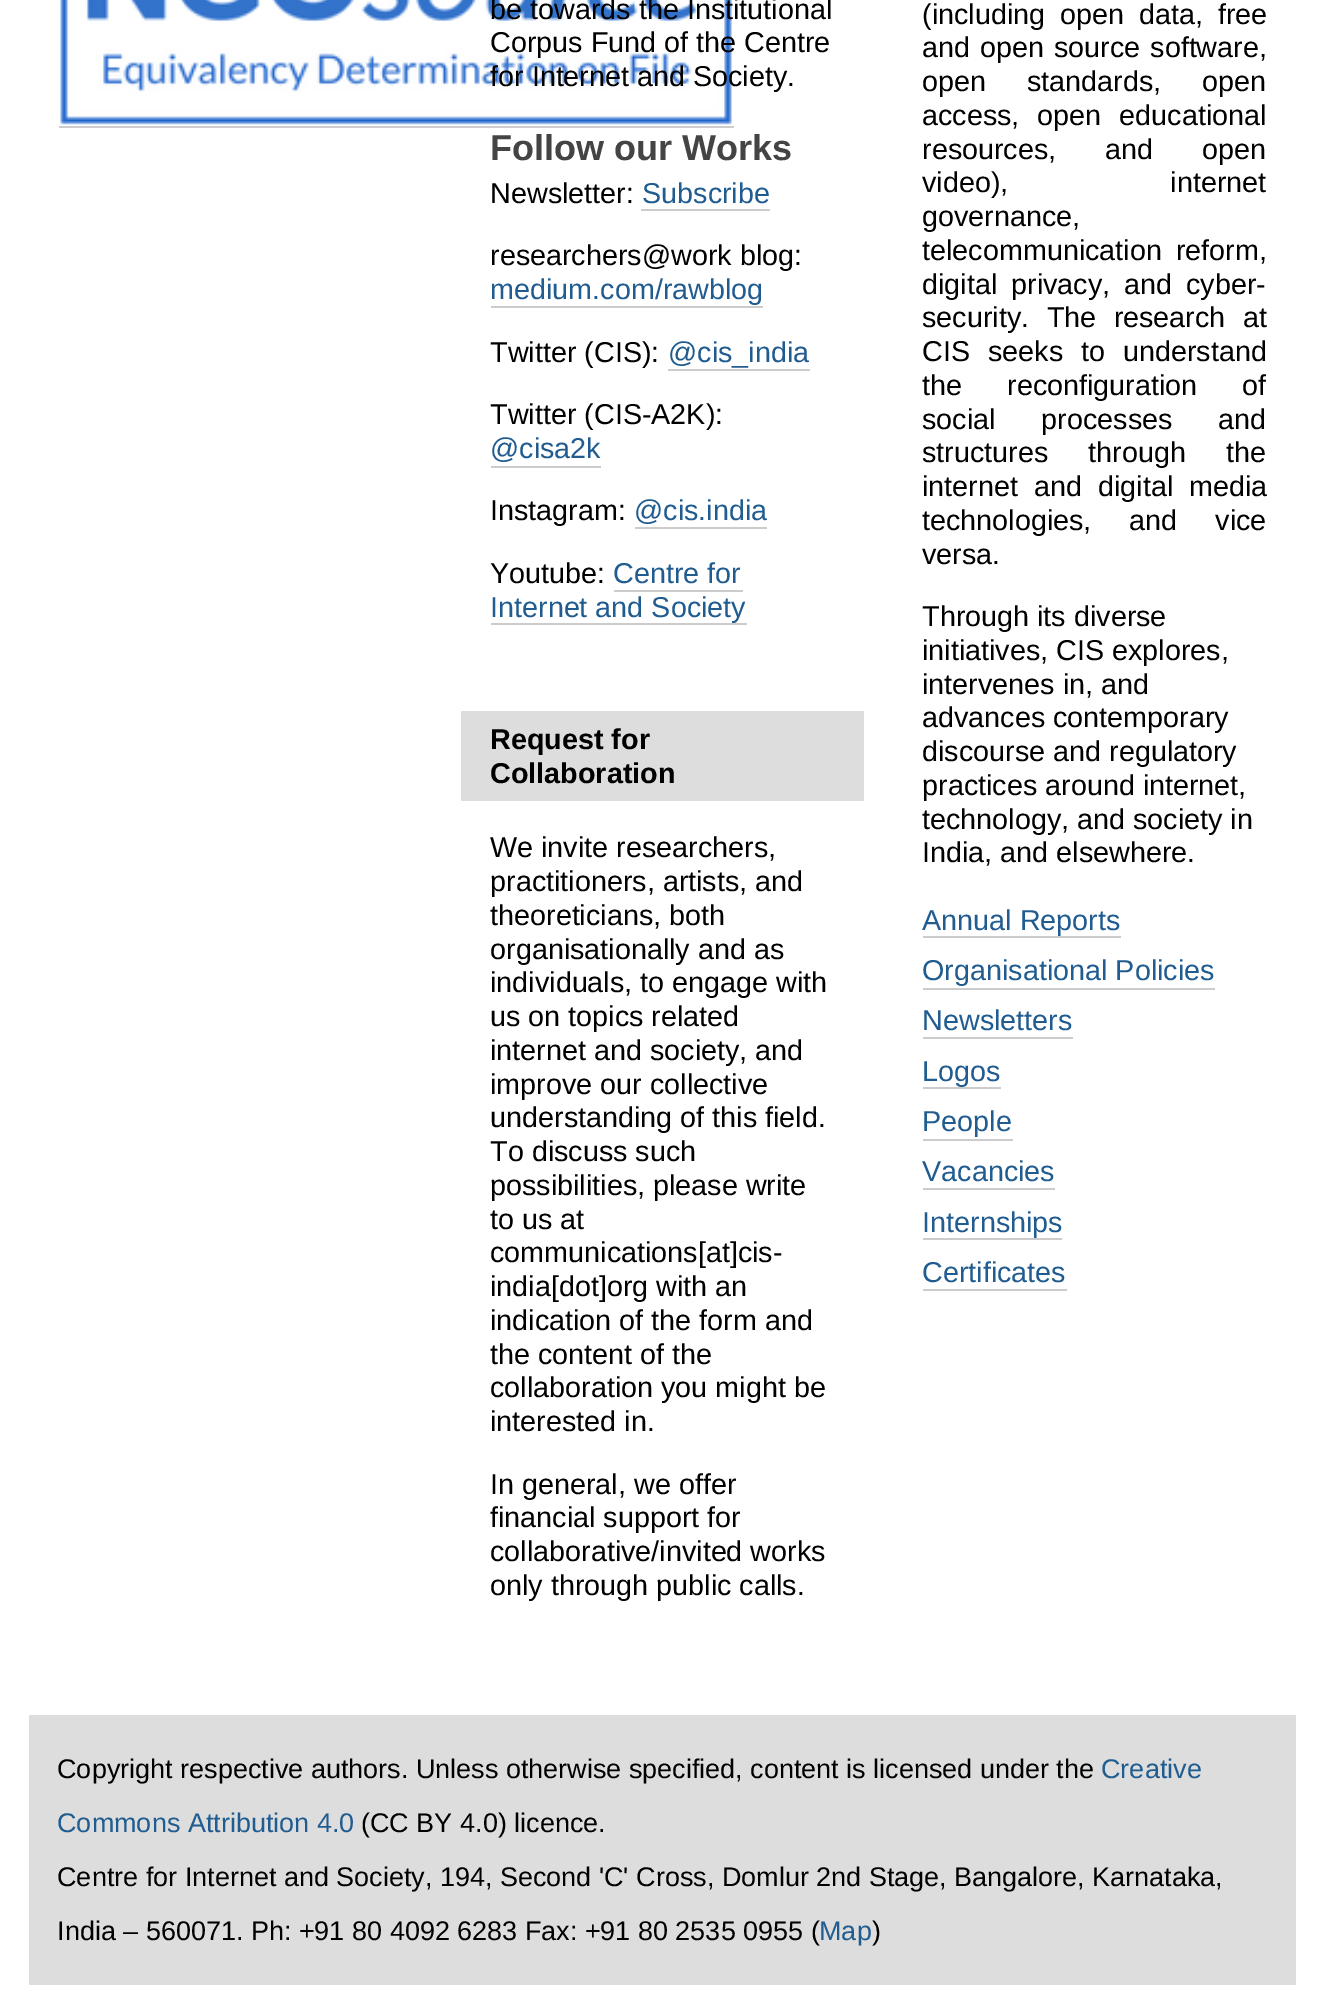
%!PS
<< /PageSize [1324 2010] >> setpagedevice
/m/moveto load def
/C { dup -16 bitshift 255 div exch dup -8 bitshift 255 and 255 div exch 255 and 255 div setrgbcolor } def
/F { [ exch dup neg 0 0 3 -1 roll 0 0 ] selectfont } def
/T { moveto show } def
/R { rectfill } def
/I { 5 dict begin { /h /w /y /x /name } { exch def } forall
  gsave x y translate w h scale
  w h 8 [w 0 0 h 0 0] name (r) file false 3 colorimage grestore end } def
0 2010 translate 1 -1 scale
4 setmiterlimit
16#FFFFFF C
0 0 1324 2010 R
(1.rgb) 60 0 672 125 I
16#CCCCCC C
59 126 675 2 R
/LiberationSans-Regular 28.75 F
16#000000 C
(be towards the Institutional) 490 19 T
(Corpus Fund of the Centre) 490 52 T
(for Internet and Society.) 490 86 T
/LiberationSans-Bold 36 F
16#444444 C
(Follow our Works) 490 160 T
/LiberationSans-Regular 28.75 F
16#000000 C
(Newsletter:) 490 203 T
16#205C90 C
(Subscribe) 642 203 T
16#CCCCCC C
641 209 129 2 R
16#000000 C
(researchers@work blog:) 490 265 T
16#205C90 C
(medium.com/rawblog) 490 299 T
16#CCCCCC C
491 306 272 2 R
16#000000 C
(Twitter \(CIS\):) 490 362 T
16#205C90 C
(@cis_india) 668 362 T
16#CCCCCC C
668 369 142 2 R
16#000000 C
(Twitter \(CIS-A2K\):) 490 424 T
16#205C90 C
(@cisa2k) 490 458 T
16#CCCCCC C
491 466 110 2 R
16#000000 C
(Instagram:) 490 520 T
16#205C90 C
(@cis.india) 634 520 T
16#CCCCCC C
635 527 132 2 R
16#000000 C
(Youtube:) 490 583 T
16#205C90 C
(Centre for) 613 583 T
16#CCCCCC C
614 590 129 2 R
16#205C90 C
(Internet and Society) 490 617 T
16#CCCCCC C
491 623 256 2 R
16#DDDDDD C
461 711 403 90 R
/LiberationSans-Bold 28.75 F
16#000000 C
(Request for) 490 749 T
(Collaboration) 490 783 T
/LiberationSans-Regular 28.75 F
(We invite researchers,) 490 857 T
(practitioners, artists, and) 490 891 T
(theoreticians, both) 490 925 T
(organisationally and as) 490 959 T
(individuals, to engage with) 490 992 T
(us on topics related) 490 1026 T
(internet and society, and) 490 1060 T
(improve our collective) 490 1094 T
(understanding of this field.) 490 1127 T
(To discuss such) 490 1161 T
(possibilities, please write) 490 1195 T
(to us at) 490 1229 T
(communications[at]cis-) 490 1262 T
(india[dot]org with an) 490 1296 T
(indication of the form and) 490 1330 T
(the content of the) 490 1364 T
(collaboration you might be) 490 1397 T
(interested in.) 490 1431 T
(In general, we offer) 490 1494 T
(financial support for) 490 1527 T
(collaborative/invited works) 490 1561 T
(only through public calls.) 490 1595 T
922 24 m 7 0 32 (\(including open data, free) widthshow
922 57 m 2 0 32 (and open source software,) widthshow
922 91 m 33 0 32 (open standards, open) widthshow
922 125 m 10 0 32 (access, open educational) widthshow
922 159 m 41 0 32 (resources, and open) widthshow
922 192 m 154 0 32 (video\), internet) widthshow
(governance,) 922 226 T
922 260 m 6 0 32 (telecommunication reform,) widthshow
922 294 m 6 0 32 (digital privacy, and cyber-) widthshow
922 327 m 9.5 0 32 (security. The research at) widthshow
922 361 m 10 0 32 (CIS seeks to understand) widthshow
922 395 m 37 0 32 (the reconfiguration of) widthshow
922 429 m 38 0 32 (social processes and) widthshow
922 462 m 32 0 32 (structures through the) widthshow
922 496 m 8 0 32 (internet and digital media) widthshow
922 530 m 30 0 32 (technologies, and vice) widthshow
(versa.) 922 564 T
(Through its diverse) 922 626 T
(initiatives, CIS explores,) 922 660 T
(intervenes in, and) 922 694 T
(advances contemporary) 922 727 T
(discourse and regulatory) 922 761 T
(practices around internet,) 922 795 T
(technology, and society in) 922 829 T
(India, and elsewhere.) 922 862 T
16#205C90 C
(Annual Reports) 922 930 T
16#CCCCCC C
923 936 198 2 R
16#205C90 C
(Organisational Policies) 922 980 T
16#CCCCCC C
923 988 292 2 R
16#205C90 C
(Newsletters) 922 1030 T
16#CCCCCC C
923 1037 150 2 R
16#205C90 C
(Logos) 922 1081 T
16#CCCCCC C
923 1087 78 2 R
16#205C90 C
(People) 922 1131 T
16#CCCCCC C
923 1139 90 2 R
16#205C90 C
(Vacancies) 922 1181 T
16#CCCCCC C
923 1188 132 2 R
16#205C90 C
(Internships) 922 1232 T
16#CCCCCC C
923 1238 139 2 R
16#205C90 C
(Certificates) 922 1282 T
16#CCCCCC C
923 1289 144 2 R
16#DDDDDD C
29 1715 1267 270 R
/LiberationSans-Regular 27 F
16#000000 C
(Copyright respective authors. Unless otherwise specified, content is licensed under the) 57 1778 T
16#205C90 C
(Creative) 1101 1778 T
(Commons Attribution 4.0) 57 1832 T
16#000000 C
(\(CC BY 4.0\) licence.) 361 1832 T
(Centre for Internet and Society, 194, Second 'C' Cross, Domlur 2nd Stage, Bangalore, Karnataka,) 57 1886 T
(India – 560071. Ph: +91 80 4092 6283 Fax: +91 80 2535 0955 \() 57 1940 T
16#205C90 C
(Map) 819 1940 T
16#000000 C
(\)) 872 1940 T
showpage
